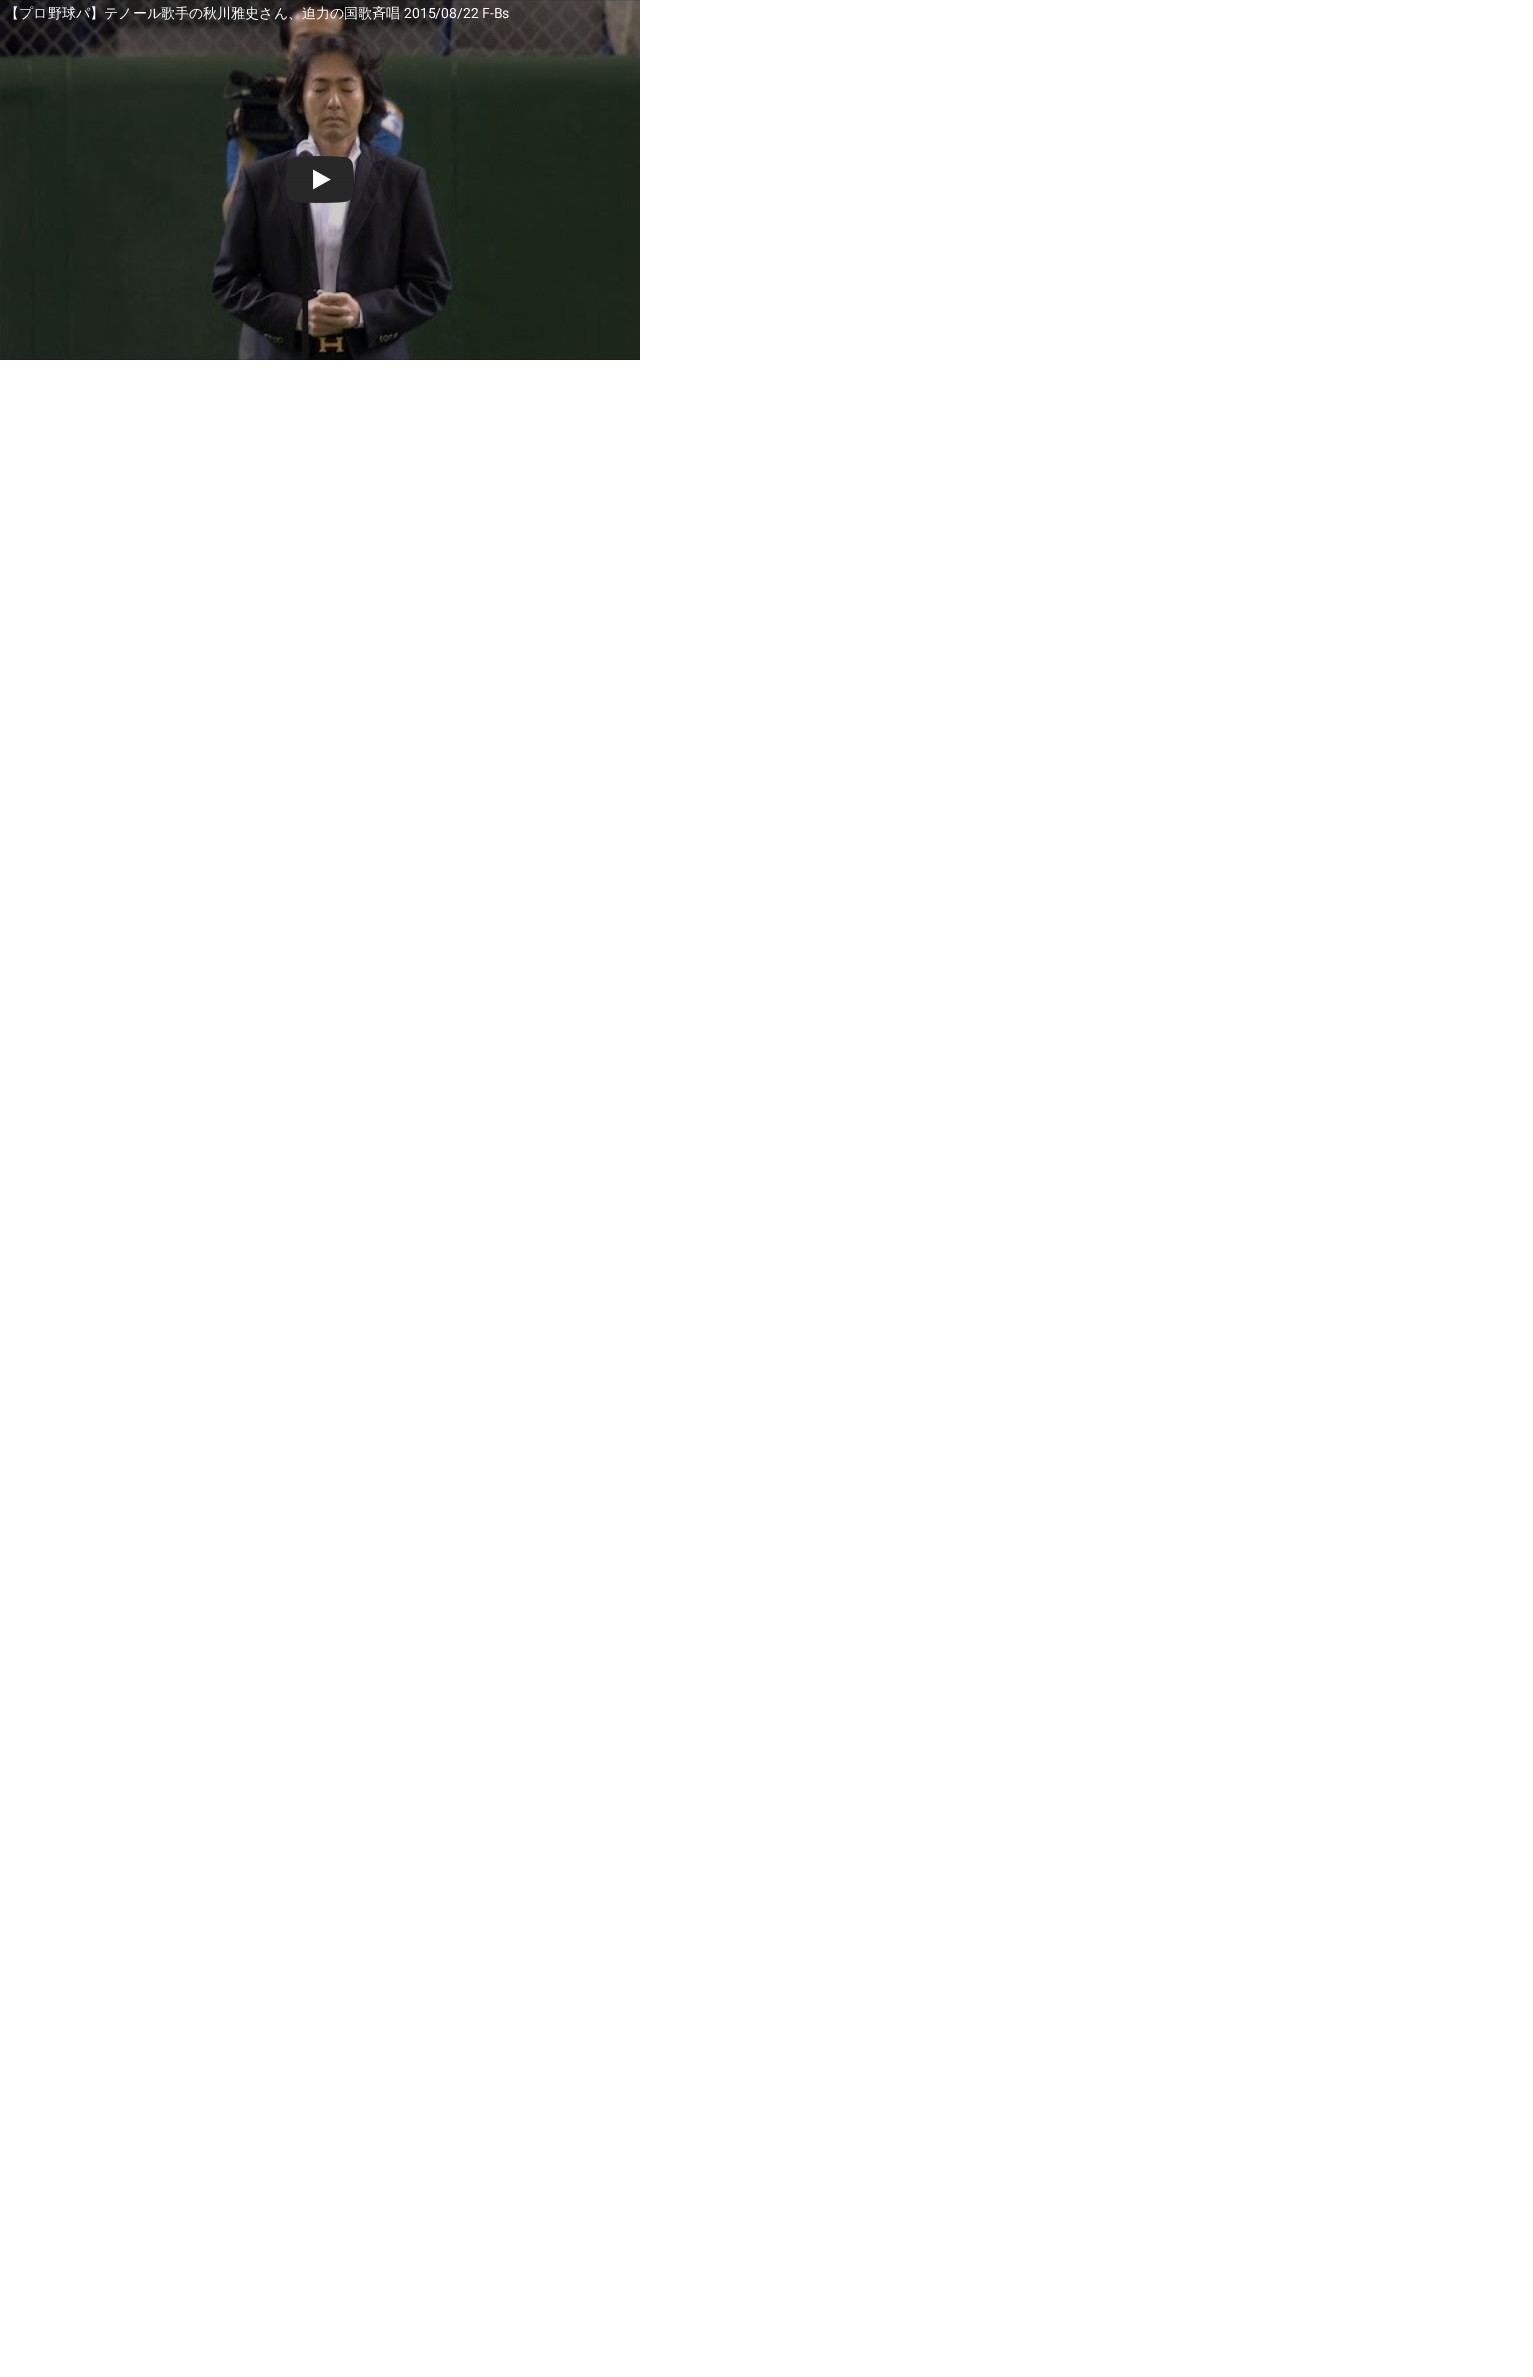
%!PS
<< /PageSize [1533 2377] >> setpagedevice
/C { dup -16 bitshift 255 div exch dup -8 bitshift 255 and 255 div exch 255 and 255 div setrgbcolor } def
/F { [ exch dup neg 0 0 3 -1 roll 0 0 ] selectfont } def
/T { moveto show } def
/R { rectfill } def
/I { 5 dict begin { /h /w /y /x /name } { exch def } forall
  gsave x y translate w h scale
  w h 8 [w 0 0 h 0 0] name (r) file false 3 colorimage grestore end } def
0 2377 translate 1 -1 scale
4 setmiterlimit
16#FFFFFF C
0 0 1533 2377 R
(1.rgb) 0 0 640 360 I
/WenQuanYiZenHei-Medium 14 F
(【プロ野球パ】テノール歌手の秋川雅史さん、迫力の国歌斉唱) 5 18 T
/Roboto-Regular 14 F
(2015/08/22 F-Bs) 404 18 T
(2.rgb) 286 156 68 47 I
showpage
